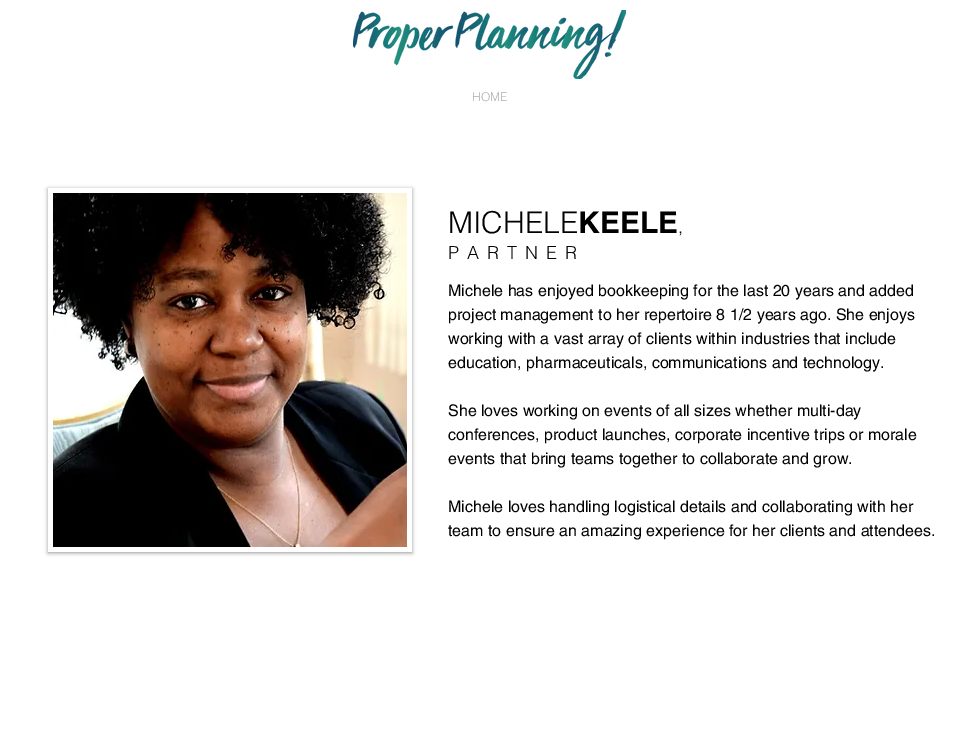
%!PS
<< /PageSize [961 744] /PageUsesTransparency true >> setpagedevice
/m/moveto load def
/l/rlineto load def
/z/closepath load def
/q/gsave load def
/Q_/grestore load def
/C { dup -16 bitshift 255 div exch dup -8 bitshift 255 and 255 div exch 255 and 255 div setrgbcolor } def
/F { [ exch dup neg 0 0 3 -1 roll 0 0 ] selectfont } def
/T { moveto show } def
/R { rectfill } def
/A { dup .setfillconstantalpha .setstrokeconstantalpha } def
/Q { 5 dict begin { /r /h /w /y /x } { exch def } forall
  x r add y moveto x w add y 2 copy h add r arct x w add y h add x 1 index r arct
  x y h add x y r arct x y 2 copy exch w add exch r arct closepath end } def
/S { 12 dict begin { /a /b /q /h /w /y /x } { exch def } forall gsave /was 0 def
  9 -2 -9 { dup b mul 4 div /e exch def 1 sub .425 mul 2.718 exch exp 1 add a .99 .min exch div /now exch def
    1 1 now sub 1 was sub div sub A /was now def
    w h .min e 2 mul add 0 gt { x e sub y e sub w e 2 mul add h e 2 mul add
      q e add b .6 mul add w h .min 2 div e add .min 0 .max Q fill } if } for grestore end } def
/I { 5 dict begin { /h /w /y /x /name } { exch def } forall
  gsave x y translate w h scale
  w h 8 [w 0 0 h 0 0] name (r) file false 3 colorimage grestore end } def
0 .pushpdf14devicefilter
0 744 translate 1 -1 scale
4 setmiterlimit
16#FFFFFF C
0 0 961 744 R
(1.rgb) 353 10 273 69 I
/helvetica-Light 12 F
16#ABABAB C
(HOME) 472 101 T
q
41 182 m 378 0 l 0 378 l -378 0 l z 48 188 m 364 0 l 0 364 l -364 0 l z eoclip newpath
16#000000 C
48 189 364 364 0 2 .4 S
Q_
(2.rgb) 53 193 354 354 I
/helvetica-Light 30 F
16#000000 C
(MICHELE) 448 233 T
/helvetica-Bold 30 F
(KEELE) 578 233 T
/helvetica-Light 18 F
(,) 678 233 T
448 259 m 8 0 (PARTNER) ashow
/helvetica-Regular 16 F
(Michele has enjoyed bookkeeping for the last 20 years and added) 448 296 T
(project management to her repertoire 8 1/2 years ago. She enjoys) 448 320 T
(working with a vast array of clients within industries that include) 448 344 T
(education, pharmaceuticals, communications and technology.) 448 368 T
(She loves working on events of all sizes whether multi-day) 448 416 T
(conferences, product launches, corporate incentive trips or morale) 448 440 T
(events that bring teams together to collaborate and grow.) 448 464 T
(Michele loves handling logistical details and collaborating with her) 448 512 T
(team to ensure an amazing experience for her clients and attendees.) 448 536 T
.poppdf14devicefilter showpage
